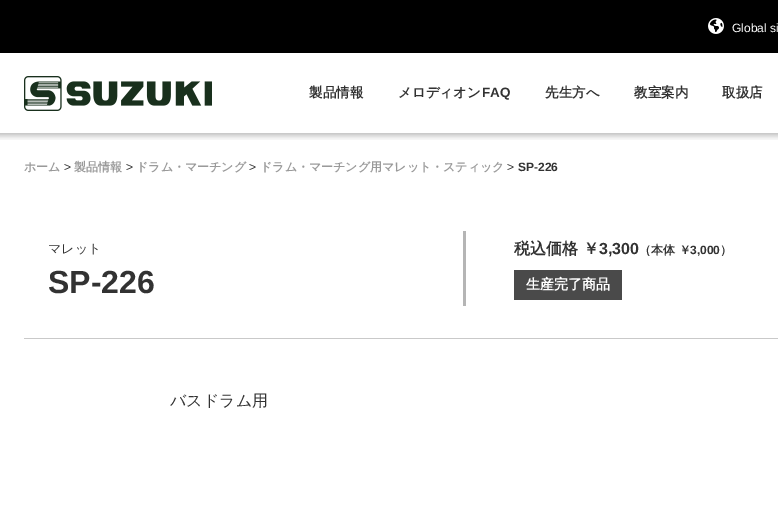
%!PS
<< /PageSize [778 509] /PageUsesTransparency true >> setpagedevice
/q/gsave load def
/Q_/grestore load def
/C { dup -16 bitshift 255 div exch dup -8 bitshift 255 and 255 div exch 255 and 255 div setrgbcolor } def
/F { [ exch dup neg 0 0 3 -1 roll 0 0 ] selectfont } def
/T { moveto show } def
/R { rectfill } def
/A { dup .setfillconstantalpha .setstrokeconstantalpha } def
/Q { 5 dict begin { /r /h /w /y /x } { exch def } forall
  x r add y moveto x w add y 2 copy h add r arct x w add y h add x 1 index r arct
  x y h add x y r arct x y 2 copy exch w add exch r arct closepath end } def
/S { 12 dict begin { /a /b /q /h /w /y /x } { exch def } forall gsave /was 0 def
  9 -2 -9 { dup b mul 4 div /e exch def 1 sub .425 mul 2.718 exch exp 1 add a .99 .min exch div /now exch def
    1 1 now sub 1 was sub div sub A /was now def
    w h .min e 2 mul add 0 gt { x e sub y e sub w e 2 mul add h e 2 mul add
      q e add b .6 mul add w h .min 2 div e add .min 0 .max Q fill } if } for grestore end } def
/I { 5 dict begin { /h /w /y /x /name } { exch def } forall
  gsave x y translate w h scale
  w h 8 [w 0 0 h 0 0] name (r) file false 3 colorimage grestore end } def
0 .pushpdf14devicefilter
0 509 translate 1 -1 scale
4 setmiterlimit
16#FFFFFF C
0 0 778 509 R
q
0 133 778 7 rectclip
16#000000 C
-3 -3 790 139 0 3 .25 S
Q_
16#000000 C
0 0 778 53 R
(1.rgb) 708 18 16 16 I
/LiberationSans-Regular 12 F
16#FFFFFF C
(Global si) 732 32 T
(2.rgb) 24 76 188 35 I
/WenQuanYiZenHei-Bold 13.5 F
16#323232 C
(製品情報) 309 97 T
(メロディオン) 398 97 T
/LiberationSans-Bold 13.5 F
(FAQ) 482 97 T
/WenQuanYiZenHei-Bold 13.5 F
(先生方へ) 545 97 T
(教室案内) 634 97 T
(取扱店) 722 97 T
/WenQuanYiZenHei-Bold 12 F
16#9A9A9A C
(ホーム) 24 171 T
/LiberationSans-Regular 12 F
16#323232 C
(>) 64 171 T
/WenQuanYiZenHei-Bold 12 F
16#9A9A9A C
(製品情報) 74 171 T
/LiberationSans-Regular 12 F
16#323232 C
(>) 126 171 T
/WenQuanYiZenHei-Bold 12 F
16#9A9A9A C
(ドラム・マーチング) 136 171 T
/LiberationSans-Regular 12 F
16#323232 C
(>) 249 171 T
/WenQuanYiZenHei-Bold 12 F
16#9A9A9A C
(ドラム・マーチング用マレット・スティック) 260 171 T
/LiberationSans-Regular 12 F
16#323232 C
(>) 507 171 T
/LiberationSans-Bold 12 F
(SP-226) 518 171 T
16#C9C9C9 C
24 338 754 1 R
/WenQuanYiZenHei-Medium 13 F
16#323232 C
(マレット) 48 253 T
/LiberationSans-Bold 32 F
(SP-226) 48 293 T
16#B5B5B5 C
463 231 3 75 R
/WenQuanYiZenHei-Bold 16 F
16#323232 C
(税込価格 ￥) 514 254 T
/LiberationSans-Bold 16 F
(3,300) 599 254 T
/WenQuanYiZenHei-Bold 12 F
(（本体 ￥) 639 254 T
/LiberationSans-Bold 12 F
(3,000) 690 254 T
/WenQuanYiZenHei-Bold 12 F
(）) 720 254 T
16#4A4A4A C
514 270 108 30 R
/WenQuanYiZenHei-Bold 14 F
16#FFFFFF C
(生産完了商品) 526 289 T
/WenQuanYiZenHei-Medium 16 F
16#323232 C
(バスドラム用) 170 406 T
.poppdf14devicefilter showpage
